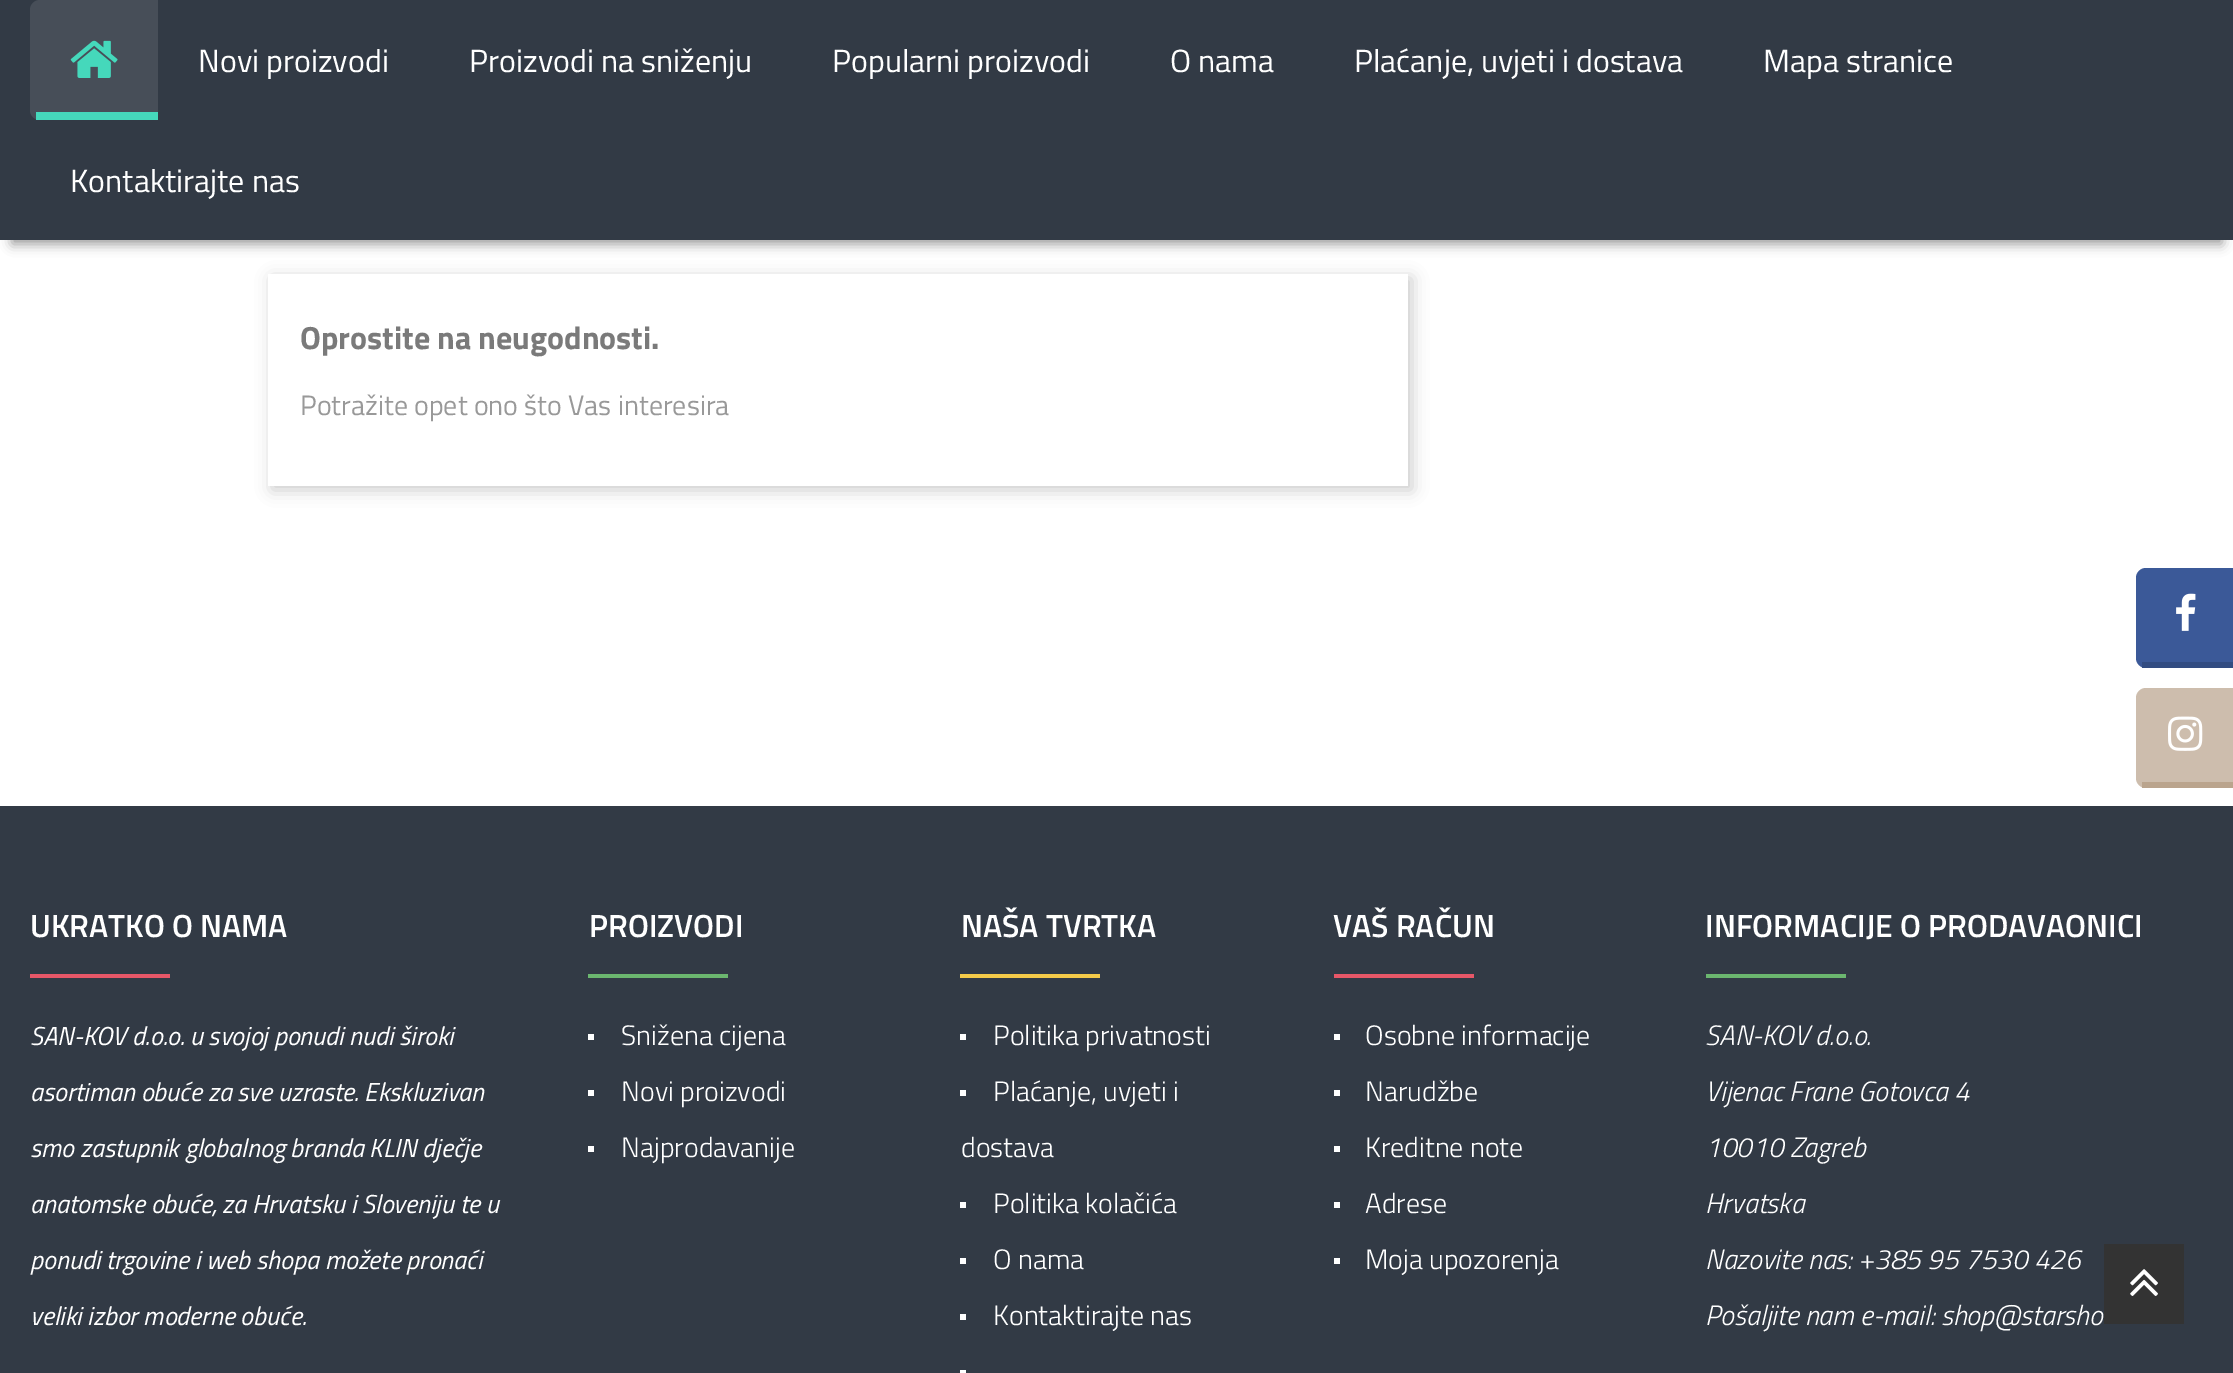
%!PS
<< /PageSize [2233 1373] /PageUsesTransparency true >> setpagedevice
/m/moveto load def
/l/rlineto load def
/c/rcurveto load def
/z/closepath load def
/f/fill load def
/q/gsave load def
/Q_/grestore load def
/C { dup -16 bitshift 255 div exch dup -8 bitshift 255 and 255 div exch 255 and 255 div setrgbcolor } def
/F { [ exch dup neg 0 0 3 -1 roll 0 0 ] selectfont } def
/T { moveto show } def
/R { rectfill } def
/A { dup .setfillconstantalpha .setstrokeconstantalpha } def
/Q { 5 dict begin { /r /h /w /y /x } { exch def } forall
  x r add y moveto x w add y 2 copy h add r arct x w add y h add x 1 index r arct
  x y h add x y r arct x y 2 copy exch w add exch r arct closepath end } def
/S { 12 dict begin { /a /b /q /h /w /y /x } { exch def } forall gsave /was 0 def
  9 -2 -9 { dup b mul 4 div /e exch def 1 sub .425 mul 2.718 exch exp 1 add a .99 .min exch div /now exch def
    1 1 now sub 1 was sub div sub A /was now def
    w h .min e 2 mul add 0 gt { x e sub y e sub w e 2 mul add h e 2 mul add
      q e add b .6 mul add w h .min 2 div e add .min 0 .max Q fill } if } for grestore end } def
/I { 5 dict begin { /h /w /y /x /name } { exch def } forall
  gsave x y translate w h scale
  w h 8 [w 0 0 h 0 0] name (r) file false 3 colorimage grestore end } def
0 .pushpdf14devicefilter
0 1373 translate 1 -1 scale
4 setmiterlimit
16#FFFFFF C
0 0 2233 1373 R
16#000000 C
12 28 2210 216 0 6 .4 S
16#323A45 C
0 0 2233 240 R
16#474E58 C
40 0 m 118 0 l 0 120 l -118 0 l -5.5 0 -10 -4.5 -10 -10 c 0 -100 l 0 -5.5 4.5 -10 10 -10 c z f
16#45D8BB C
36 112 122 8 R
(1.rgb) 70 40 48 38 I
/TitilliumWeb-Regular 32 F
16#FFFFFF C
(Novi proizvodi) 198 72 T
(Proizvodi na sniženju) 469 72 T
(Popularni proizvodi) 832 72 T
(O nama) 1170 72 T
(Plaćanje, uvjeti i dostava) 1354 72 T
(Mapa stranice) 1763 72 T
(Kontaktirajte nas) 70 192 T
q
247 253 m 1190 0 l 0 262 l -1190 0 l z 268 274 m 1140 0 l 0 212 l -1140 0 l z eoclip newpath
16#000000 C
272 278 1140 212 0 8 .2 S
Q_
/TitilliumWeb-Bold 32 F
16#7A7A7A C
(Oprostite na neugodnosti.) 300 349 T
/TitilliumWeb-Regular 28 F
16#999999 C
(Potražite opet ono što Vas interesira) 300 415 T
16#323A45 C
0 806 2233 567 R
16#3B5998 C
2146 568 m 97 0 l 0 100 l -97 0 l -5.5 0 -10 -4.5 -10 -10 c 0 -80 l 0 -5.5 4.5 -10 10 -10 c z f
16#324C81 C
2142 662 91 6 R
(2.rgb) 2176 593 20 38 I
16#CDBDAD C
2146 688 m 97 0 l 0 100 l -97 0 l -5.5 0 -10 -4.5 -10 -10 c 0 -80 l 0 -5.5 4.5 -10 10 -10 c z f
16#BAA48D C
2142 782 91 6 R
(3.rgb) 2168 716 35 35 I
/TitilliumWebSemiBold-SemiBold 32 F
16#FFFFFF C
(UKRATKO O NAMA) 30 937 T
16#E75768 C
30 974 140 4 R
/TitilliumWeb-Italic 26 F
16#FFFFFF C
(SAN-KOV d.o.o. u svojoj ponudi nudi široki) 30 1045 T
(asortiman obuće za sve uzraste. Ekskluzivan) 30 1101 T
(smo zastupnik globalnog branda KLIN dječje) 30 1157 T
(anatomske obuće, za Hrvatsku i Sloveniju te u) 30 1213 T
(ponudi trgovine i web shopa možete pronaći) 30 1269 T
(veliki izbor moderne obuće.) 30 1325 T
/TitilliumWebSemiBold-SemiBold 32 F
(PROIZVODI) 589 937 T
16#6BB66F C
588 974 140 4 R
16#FFFFFF C
588 1034 6 6 R
/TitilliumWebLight-Light 28 F
(Snižena cijena) 621 1045 T
588 1090 6 6 R
(Novi proizvodi) 621 1101 T
588 1146 6 6 R
(Najprodavanije) 621 1157 T
/TitilliumWebSemiBold-SemiBold 32 F
(NAŠA TVRTKA) 961 937 T
16#F4CA49 C
960 974 140 4 R
16#FFFFFF C
960 1034 6 6 R
/TitilliumWebLight-Light 28 F
(Politika privatnosti) 993 1045 T
960 1090 6 6 R
(Plaćanje, uvjeti i) 993 1101 T
(dostava) 961 1157 T
960 1202 6 6 R
(Politika kolačića) 993 1213 T
960 1258 6 6 R
(O nama) 993 1269 T
960 1314 6 6 R
(Kontaktirajte nas) 993 1325 T
960 1370 6 3 R
/TitilliumWebSemiBold-SemiBold 32 F
(VAŠ RAČUN) 1333 937 T
16#E75768 C
1334 974 140 4 R
16#FFFFFF C
1334 1034 6 6 R
/TitilliumWebLight-Light 28 F
(Osobne informacije) 1365 1045 T
1334 1090 6 6 R
(Narudžbe) 1365 1101 T
1334 1146 6 6 R
(Kreditne note) 1365 1157 T
1334 1202 6 6 R
(Adrese) 1365 1213 T
1334 1258 6 6 R
(Moja upozorenja) 1365 1269 T
/TitilliumWebSemiBold-SemiBold 32 F
(INFORMACIJE O PRODAVAONICI) 1705 937 T
16#6BB66F C
1706 974 140 4 R
/TitilliumWebLight-LightItalic 28 F
16#FFFFFF C
(SAN-KOV d.o.o.) 1705 1045 T
(Vijenac Frane Gotovca 4) 1705 1101 T
(10010 Zagreb) 1705 1157 T
(Hrvatska) 1705 1213 T
(Nazovite nas: +385 95 7530 426) 1705 1269 T
(Pošaljite nam e-mail: shop@starsho) 1705 1325 T
16#333333 C
2104 1244 80 80 R
(4.rgb) 2130 1269 28 27 I
.poppdf14devicefilter showpage
